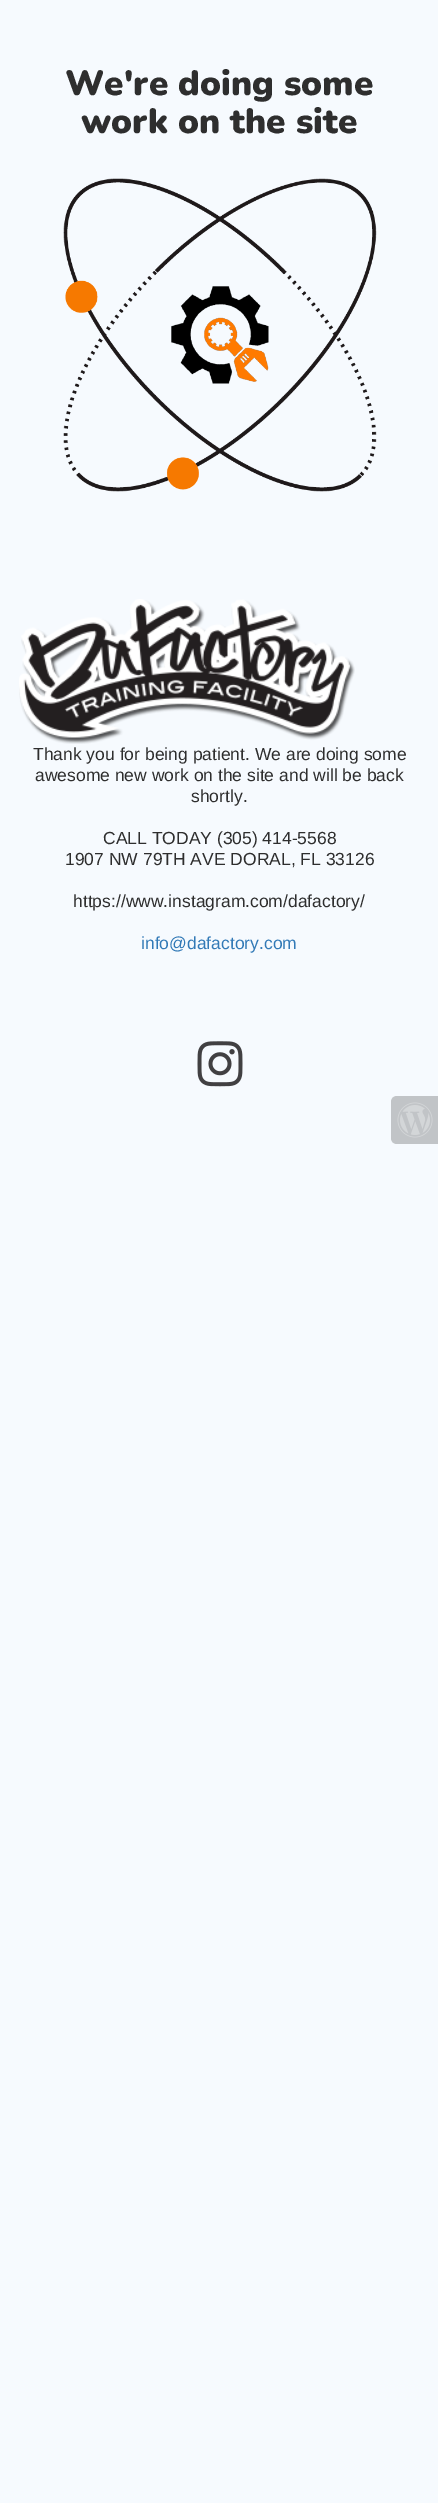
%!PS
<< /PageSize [438 2503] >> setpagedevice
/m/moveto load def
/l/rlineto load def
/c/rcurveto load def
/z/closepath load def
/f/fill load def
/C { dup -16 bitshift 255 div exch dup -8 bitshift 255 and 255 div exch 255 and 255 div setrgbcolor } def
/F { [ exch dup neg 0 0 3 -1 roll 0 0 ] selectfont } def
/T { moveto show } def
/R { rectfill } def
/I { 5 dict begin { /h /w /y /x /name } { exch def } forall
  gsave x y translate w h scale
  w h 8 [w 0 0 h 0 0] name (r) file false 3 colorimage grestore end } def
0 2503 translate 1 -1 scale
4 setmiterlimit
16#F6FAFE C
0 0 438 2503 R
/Nunito-ExtraLight 35 F
16#2E2E2E C
(We're doing some) 65 95 T
(work on the site) 81 133 T
(1.rgb) 63 178 314 314 I
(2.rgb) 19 599 336 145 I
/LiberationSans-Regular 17.5 F
(Thank you for being patient. We are doing some) 33 760 T
(awesome new work on the site and will be back) 35 781 T
(shortly.) 191 802 T
(CALL TODAY \(305\) 414-5568) 103 844 T
(1907 NW 79TH AVE DORAL, FL 33126) 65 865 T
(https://www.instagram.com/dafactory/) 73 907 T
16#337AB7 C
(info@dafactory.com) 141 949 T
(3.rgb) 197 1041 46 46 I
16#C1C4C7 C
397 1096 m 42 0 l 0 48 l -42 0 l -3.5 0 -6 -2.5 -6 -6 c 0 -36 l 0 -3.5 2.5 -6 6 -6 c z f
(4.rgb) 397 1102 36 36 I
showpage
